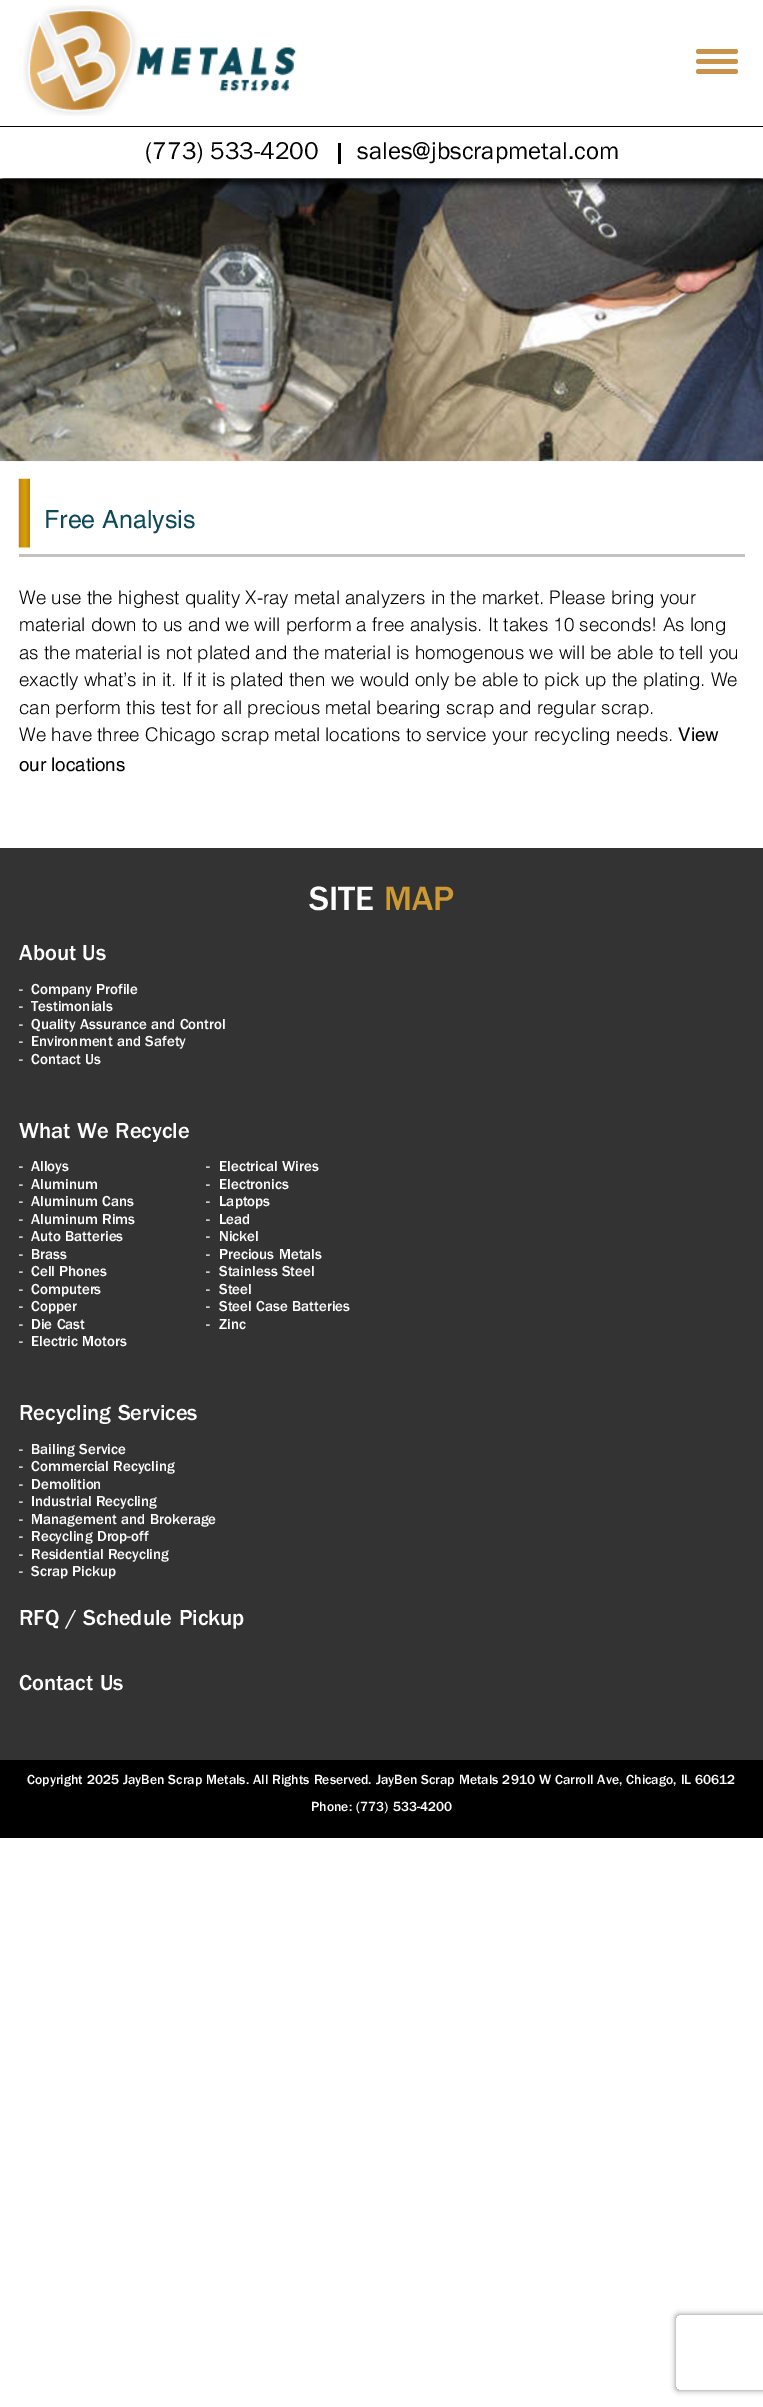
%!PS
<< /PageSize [763 2407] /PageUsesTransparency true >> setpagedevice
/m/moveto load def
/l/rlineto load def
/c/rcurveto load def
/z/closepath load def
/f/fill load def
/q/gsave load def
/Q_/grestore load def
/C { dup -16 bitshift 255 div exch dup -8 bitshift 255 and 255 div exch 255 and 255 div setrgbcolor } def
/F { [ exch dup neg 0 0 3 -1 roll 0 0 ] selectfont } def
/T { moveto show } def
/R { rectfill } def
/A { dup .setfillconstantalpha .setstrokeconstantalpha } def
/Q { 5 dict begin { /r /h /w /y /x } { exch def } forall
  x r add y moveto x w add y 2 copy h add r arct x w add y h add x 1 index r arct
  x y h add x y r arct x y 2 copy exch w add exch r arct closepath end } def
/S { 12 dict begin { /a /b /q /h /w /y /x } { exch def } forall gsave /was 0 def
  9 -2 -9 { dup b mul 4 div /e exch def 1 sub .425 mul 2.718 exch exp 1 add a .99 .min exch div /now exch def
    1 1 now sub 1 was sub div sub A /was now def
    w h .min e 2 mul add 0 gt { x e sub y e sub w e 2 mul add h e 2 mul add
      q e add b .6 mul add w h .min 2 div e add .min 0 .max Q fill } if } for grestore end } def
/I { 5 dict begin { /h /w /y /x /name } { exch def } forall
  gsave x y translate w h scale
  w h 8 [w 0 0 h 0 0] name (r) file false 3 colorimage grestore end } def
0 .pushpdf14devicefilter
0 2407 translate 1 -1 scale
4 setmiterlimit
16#FFFFFF C
0 0 763 2407 R
(2.rgb) 0 178 763 284 I
q
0 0 m 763 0 l 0 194 l -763 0 l z 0 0 m 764 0 l 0 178 l -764 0 l z eoclip newpath
16#000000 C
0 6 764 178 0 3 .75 S
Q_
16#C9934B C
696 49 42 5 2.5 Q f
696 59 42 5 2.5 Q f
696 69 42 5 2.5 Q f
0.77 A
16#FFFFFF C
0 177 763 1 R
1 A
(1.rgb) 23 5 274 111 I
16#000000 C
0 126 763 1 R
/FranklinGothic-Regular 25 F
(\(773\) 533-4200) 145 159 T
338 143 3 21 R
(sales@jbscrapmetal.com) 357 159 T
16#C2C2C2 C
19 554 726 3 R
(3.rgb) 18 478 12 70 I
/Helvetica-Regular 25 F
16#0C4959 C
(Free Analysis) 44 528 T
/Helvetica-Light 18.75 F
16#000000 C
(We use the highest quality X-ray metal analyzers in the market. Please bring your) 19 604 T
(material down to us and we will perform a free analysis. It takes 10 seconds! As long) 19 631 T
(as the material is not plated and the material is homogenous we will be able to tell you) 19 659 T
(exactly what’s in it. If it is plated then we would only be able to pick up the plating. We) 19 686 T
(can perform this test for all precious metal bearing scrap and regular scrap.) 19 714 T
(We have three Chicago scrap metal locations to service your recycling needs.) 19 741 T
/Helvetica-Regular 18.75 F
(View) 678 741 T
(our locations) 19 771 T
16#333333 C
0 848 763 912 R
/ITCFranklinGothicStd-Medium 35 F
16#FFFFFF C
(SITE) 309 910 T
16#CD9933 C
(MAP) 384 910 T
/ITCFranklinGothicStd-Medium 22.5 F
16#FFFFFF C
(About Us) 19 960 T
/ITCFranklinGothicStd-Medium 15 F
(-) 19 994 T
(Company Profile) 31 994 T
(-) 19 1011 T
(Testimonials) 31 1011 T
(-) 19 1029 T
(Quality Assurance and Control) 31 1029 T
(-) 19 1046 T
(Environment and Safety) 31 1046 T
(-) 19 1064 T
(Contact Us) 31 1064 T
/ITCFranklinGothicStd-Medium 22.5 F
(What We Recycle) 19 1138 T
/ITCFranklinGothicStd-Medium 15 F
(-) 19 1171 T
(Alloys) 31 1171 T
(-) 206 1171 T
(Electrical Wires) 219 1171 T
(-) 19 1189 T
(Aluminum) 31 1189 T
(-) 206 1189 T
(Electronics) 219 1189 T
(-) 19 1206 T
(Aluminum Cans) 31 1206 T
(-) 206 1206 T
(Laptops) 219 1206 T
(-) 19 1224 T
(Aluminum Rims) 31 1224 T
(-) 206 1224 T
(Lead) 219 1224 T
(-) 19 1241 T
(Auto Batteries) 31 1241 T
(-) 206 1241 T
(Nickel) 219 1241 T
(-) 19 1259 T
(Brass) 31 1259 T
(-) 206 1259 T
(Precious Metals) 219 1259 T
(-) 19 1276 T
(Cell Phones) 31 1276 T
(-) 206 1276 T
(Stainless Steel) 219 1276 T
(-) 19 1294 T
(Computers) 31 1294 T
(-) 206 1294 T
(Steel) 219 1294 T
(-) 19 1311 T
(Copper) 31 1311 T
(-) 206 1311 T
(Steel Case Batteries) 219 1311 T
(-) 19 1329 T
(Die Cast) 31 1329 T
(-) 206 1329 T
(Zinc) 219 1329 T
(-) 19 1346 T
(Electric Motors) 31 1346 T
/ITCFranklinGothicStd-Medium 22.5 F
(Recycling Services) 19 1420 T
/ITCFranklinGothicStd-Medium 15 F
(-) 19 1454 T
(Bailing Service) 31 1454 T
(-) 19 1471 T
(Commercial Recycling) 31 1471 T
(-) 19 1489 T
(Demolition) 31 1489 T
(-) 19 1506 T
(Industrial Recycling) 31 1506 T
(-) 19 1524 T
(Management and Brokerage) 31 1524 T
(-) 19 1541 T
(Recycling Drop-off) 31 1541 T
(-) 19 1559 T
(Residential Recycling) 31 1559 T
(-) 19 1576 T
(Scrap Pickup) 31 1576 T
/ITCFranklinGothicStd-Medium 22.5 F
(RFQ / Schedule Pickup) 19 1625 T
(Contact Us) 19 1690 T
16#000000 C
0 1760 763 78 R
/ITCFranklinGothicStd-Medium 13.75 F
16#FFFFFF C
(Copyright 2025 JayBen Scrap Metals. All Rights Reserved. JayBen Scrap Metals 2910 W Carroll Ave, Chicago, IL 60612) 27 1784 T
(Phone: \(773\) 533-4200) 311 1811 T
q
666 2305 m 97 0 l 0 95 l -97 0 l z 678.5 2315 m 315 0 l 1.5 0 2.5 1 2.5 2.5 c 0 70 l 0 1.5 -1 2.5 -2.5 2.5 c -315 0 l -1.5 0 -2.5 -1 -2.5 -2.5 c 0 -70 l 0 -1.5 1 -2.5 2.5 -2.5 c z eoclip newpath
16#808080 C
676 2315 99 75 2.5 3 1 S
Q_
.poppdf14devicefilter showpage
